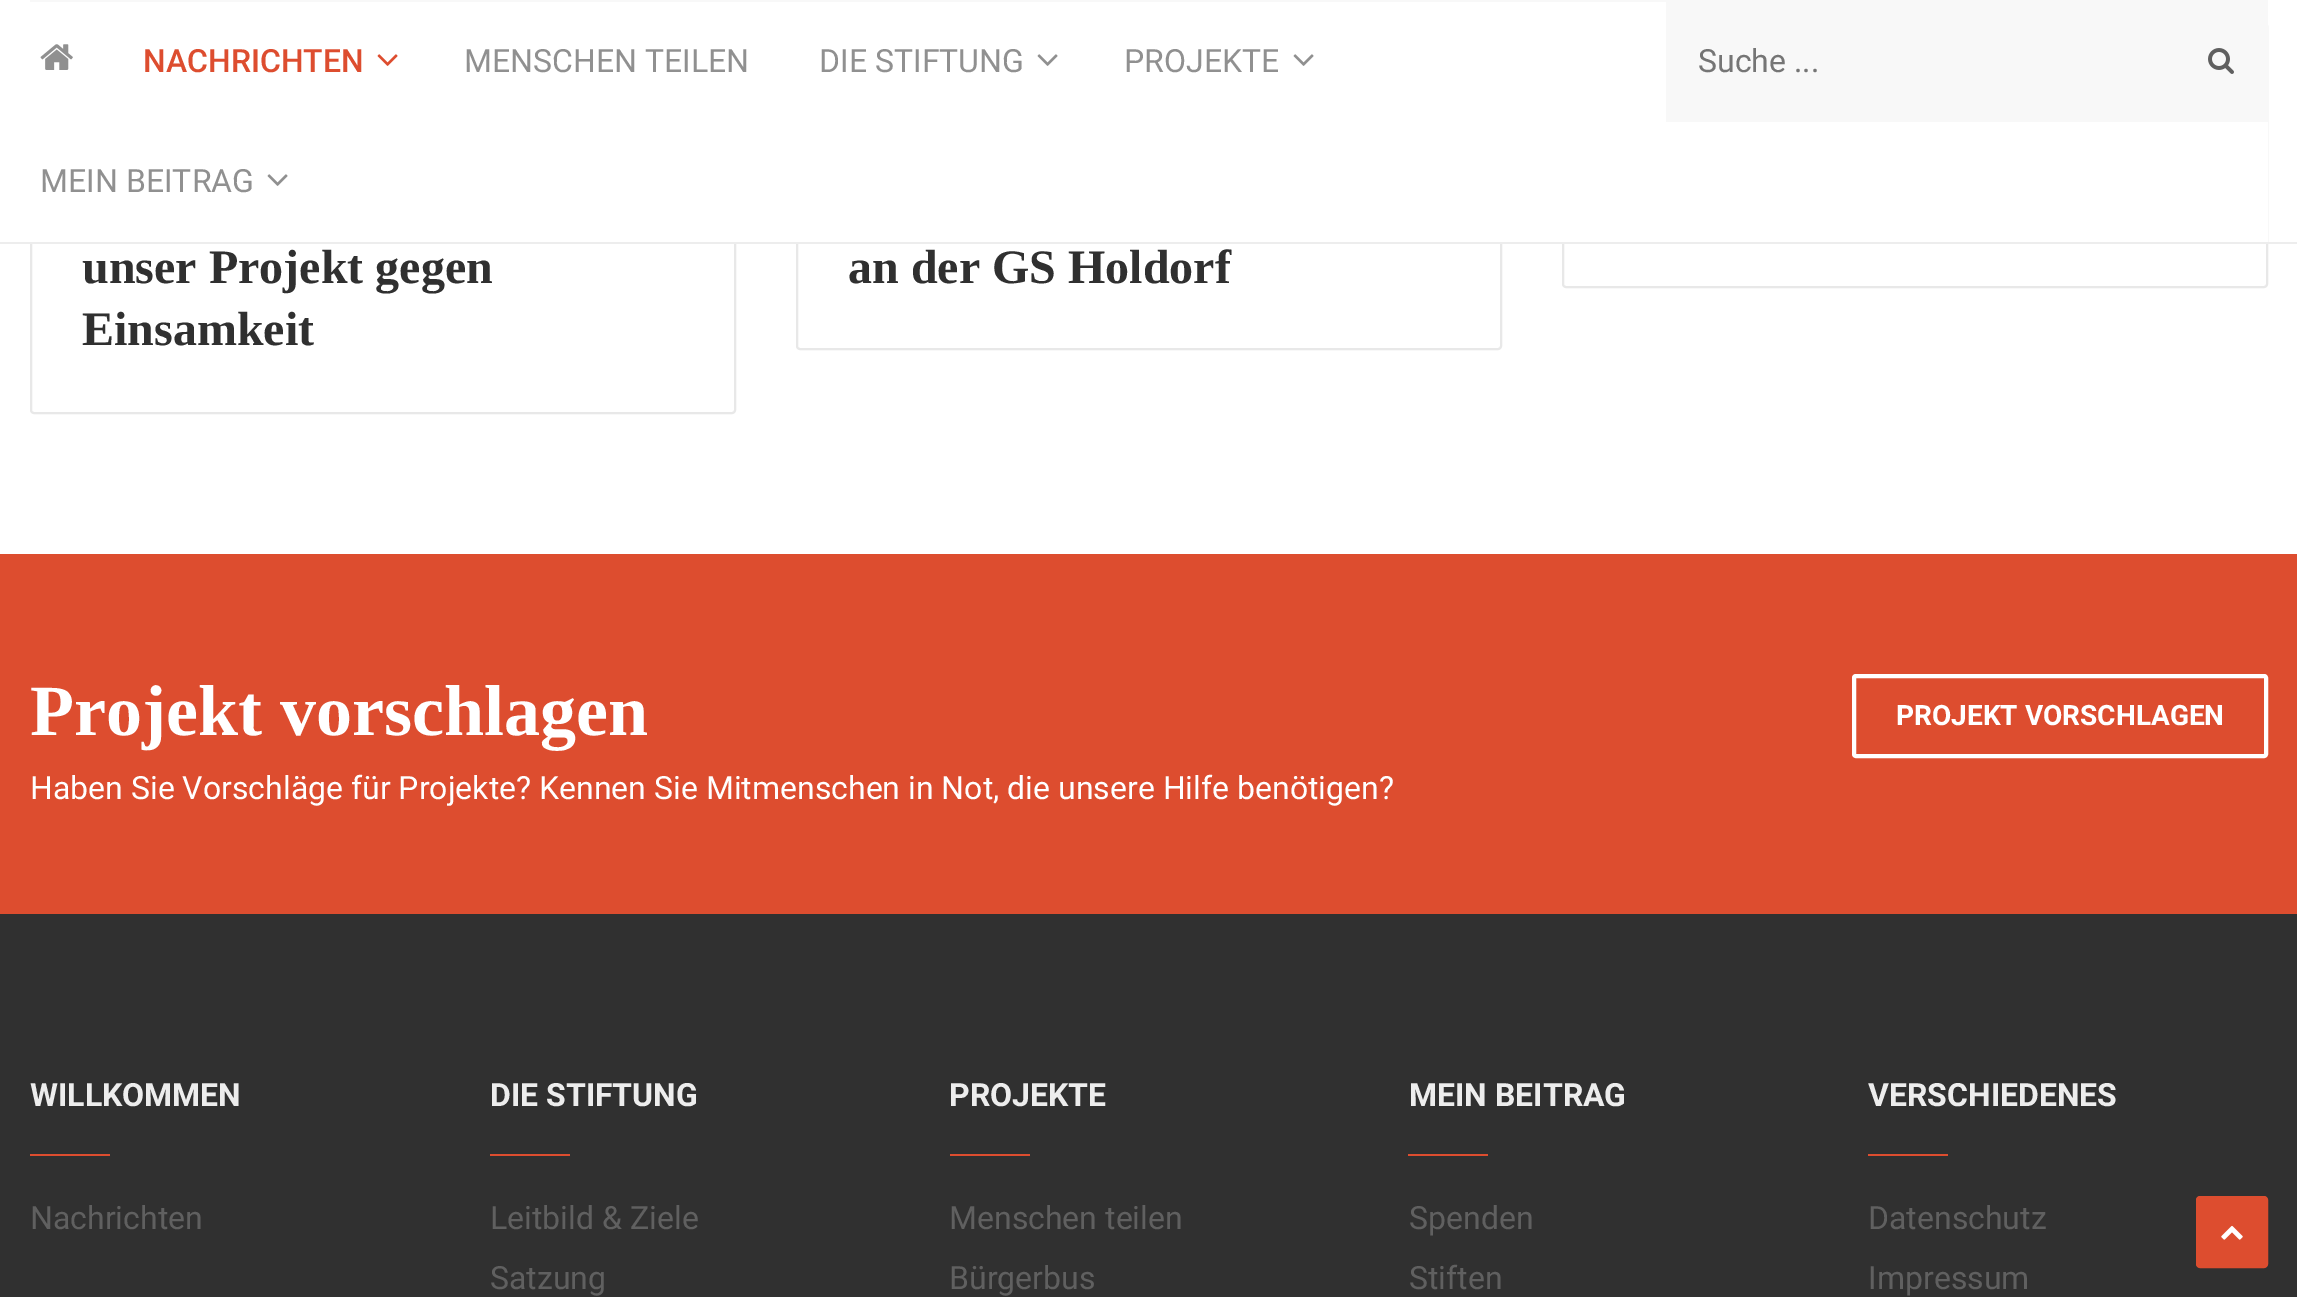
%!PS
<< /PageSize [2297 1297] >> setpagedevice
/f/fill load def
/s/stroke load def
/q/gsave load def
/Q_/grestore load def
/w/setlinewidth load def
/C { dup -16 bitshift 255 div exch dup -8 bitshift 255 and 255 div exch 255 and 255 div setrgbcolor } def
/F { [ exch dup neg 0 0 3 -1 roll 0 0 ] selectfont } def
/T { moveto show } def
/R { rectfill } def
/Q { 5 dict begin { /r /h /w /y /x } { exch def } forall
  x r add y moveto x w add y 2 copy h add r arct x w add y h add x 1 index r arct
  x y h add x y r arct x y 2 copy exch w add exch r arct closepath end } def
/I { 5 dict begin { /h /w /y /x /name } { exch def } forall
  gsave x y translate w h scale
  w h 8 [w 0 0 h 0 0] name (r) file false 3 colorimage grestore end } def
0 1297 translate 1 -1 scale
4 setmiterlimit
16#FFFFFF C
0 0 2297 1297 R
16#E8E8E8 C
2 w
31 23 704 390 3 Q s
797 23 704 326 3 Q s
1563 23 704 264 3 Q s
16#FFFFFF C
30 22 2238 220 R
16#EDEDED C
0 242 2297 2 R
16#F8F8F8 C
30 0 2238 2 R
(1.rgb) 40 44 33 26 I
/Roboto-Medium 32 F
16#DD4D2F C
(NACHRICHTEN) 143 72 T
(2.rgb) 377 54 21 12 I
/Roboto-Regular 32 F
16#909090 C
(MENSCHEN TEILEN) 464 72 T
(DIE STIFTUNG) 819 72 T
(3.rgb) 1037 54 21 12 I
(PROJEKTE) 1124 72 T
(3.rgb) 1293 54 21 12 I
(MEIN BEITRAG) 40 192 T
(3.rgb) 267 174 21 12 I
16#F8F8F8 C
1666 2 602 120 R
16#757575 C
(Suche ...) 1698 72 T
(4.rgb) 2208 48 26 26 I
/LiberationSerif-Bold 48 F
16#303030 C
(unser Projekt gegen) 82 283 T
(Einsamkeit) 82 345 T
(an der GS Holdorf) 848 283 T
16#DD4D2F C
0 554 2297 360 R
/LiberationSerif-Bold 72 F
16#FFFFFF C
(Projekt vorschlagen) 30 735 T
/Roboto-Regular 32 F
(Haben Sie Vorschläge für Projekte? Kennen Sie Mitmenschen in Not, die unsere Hilfe benötigen?) 30 799 T
4 w
1854 676 412 80 2 Q s
/Roboto-Bold 28 F
(PROJEKT VORSCHLAGEN) 1896 725 T
16#303030 C
0 914 2297 383 R
/Roboto-Bold 32 F
16#EDEDED C
(WILLKOMMEN) 30 1106 T
16#DD4D2F C
30 1154 80 2 R
/Roboto-Regular 32 F
16#606060 C
(Nachrichten) 30 1229 T
/Roboto-Bold 32 F
16#EDEDED C
(DIE STIFTUNG) 490 1106 T
16#DD4D2F C
490 1154 80 2 R
/Roboto-Regular 32 F
16#606060 C
(Leitbild & Ziele) 490 1229 T
(Satzung) 490 1289 T
/Roboto-Bold 32 F
16#EDEDED C
(PROJEKTE) 949 1106 T
16#DD4D2F C
950 1154 80 2 R
/Roboto-Regular 32 F
16#606060 C
(Menschen teilen) 949 1229 T
(Bürgerbus) 949 1289 T
/Roboto-Bold 32 F
16#EDEDED C
(MEIN BEITRAG) 1409 1106 T
16#DD4D2F C
1408 1154 80 2 R
/Roboto-Regular 32 F
16#606060 C
(Spenden) 1409 1229 T
(Stiften) 1409 1289 T
/Roboto-Bold 32 F
16#EDEDED C
(VERSCHIEDENES) 1868 1106 T
16#DD4D2F C
1868 1154 80 2 R
/Roboto-Regular 32 F
16#606060 C
(Datenschutz) 1868 1229 T
(Impressum) 1868 1289 T
16#DD4D2F C
2197 1197 70 70 3 Q q f Q_
2 w
s
(5.rgb) 2221 1225 22 15 I
showpage
